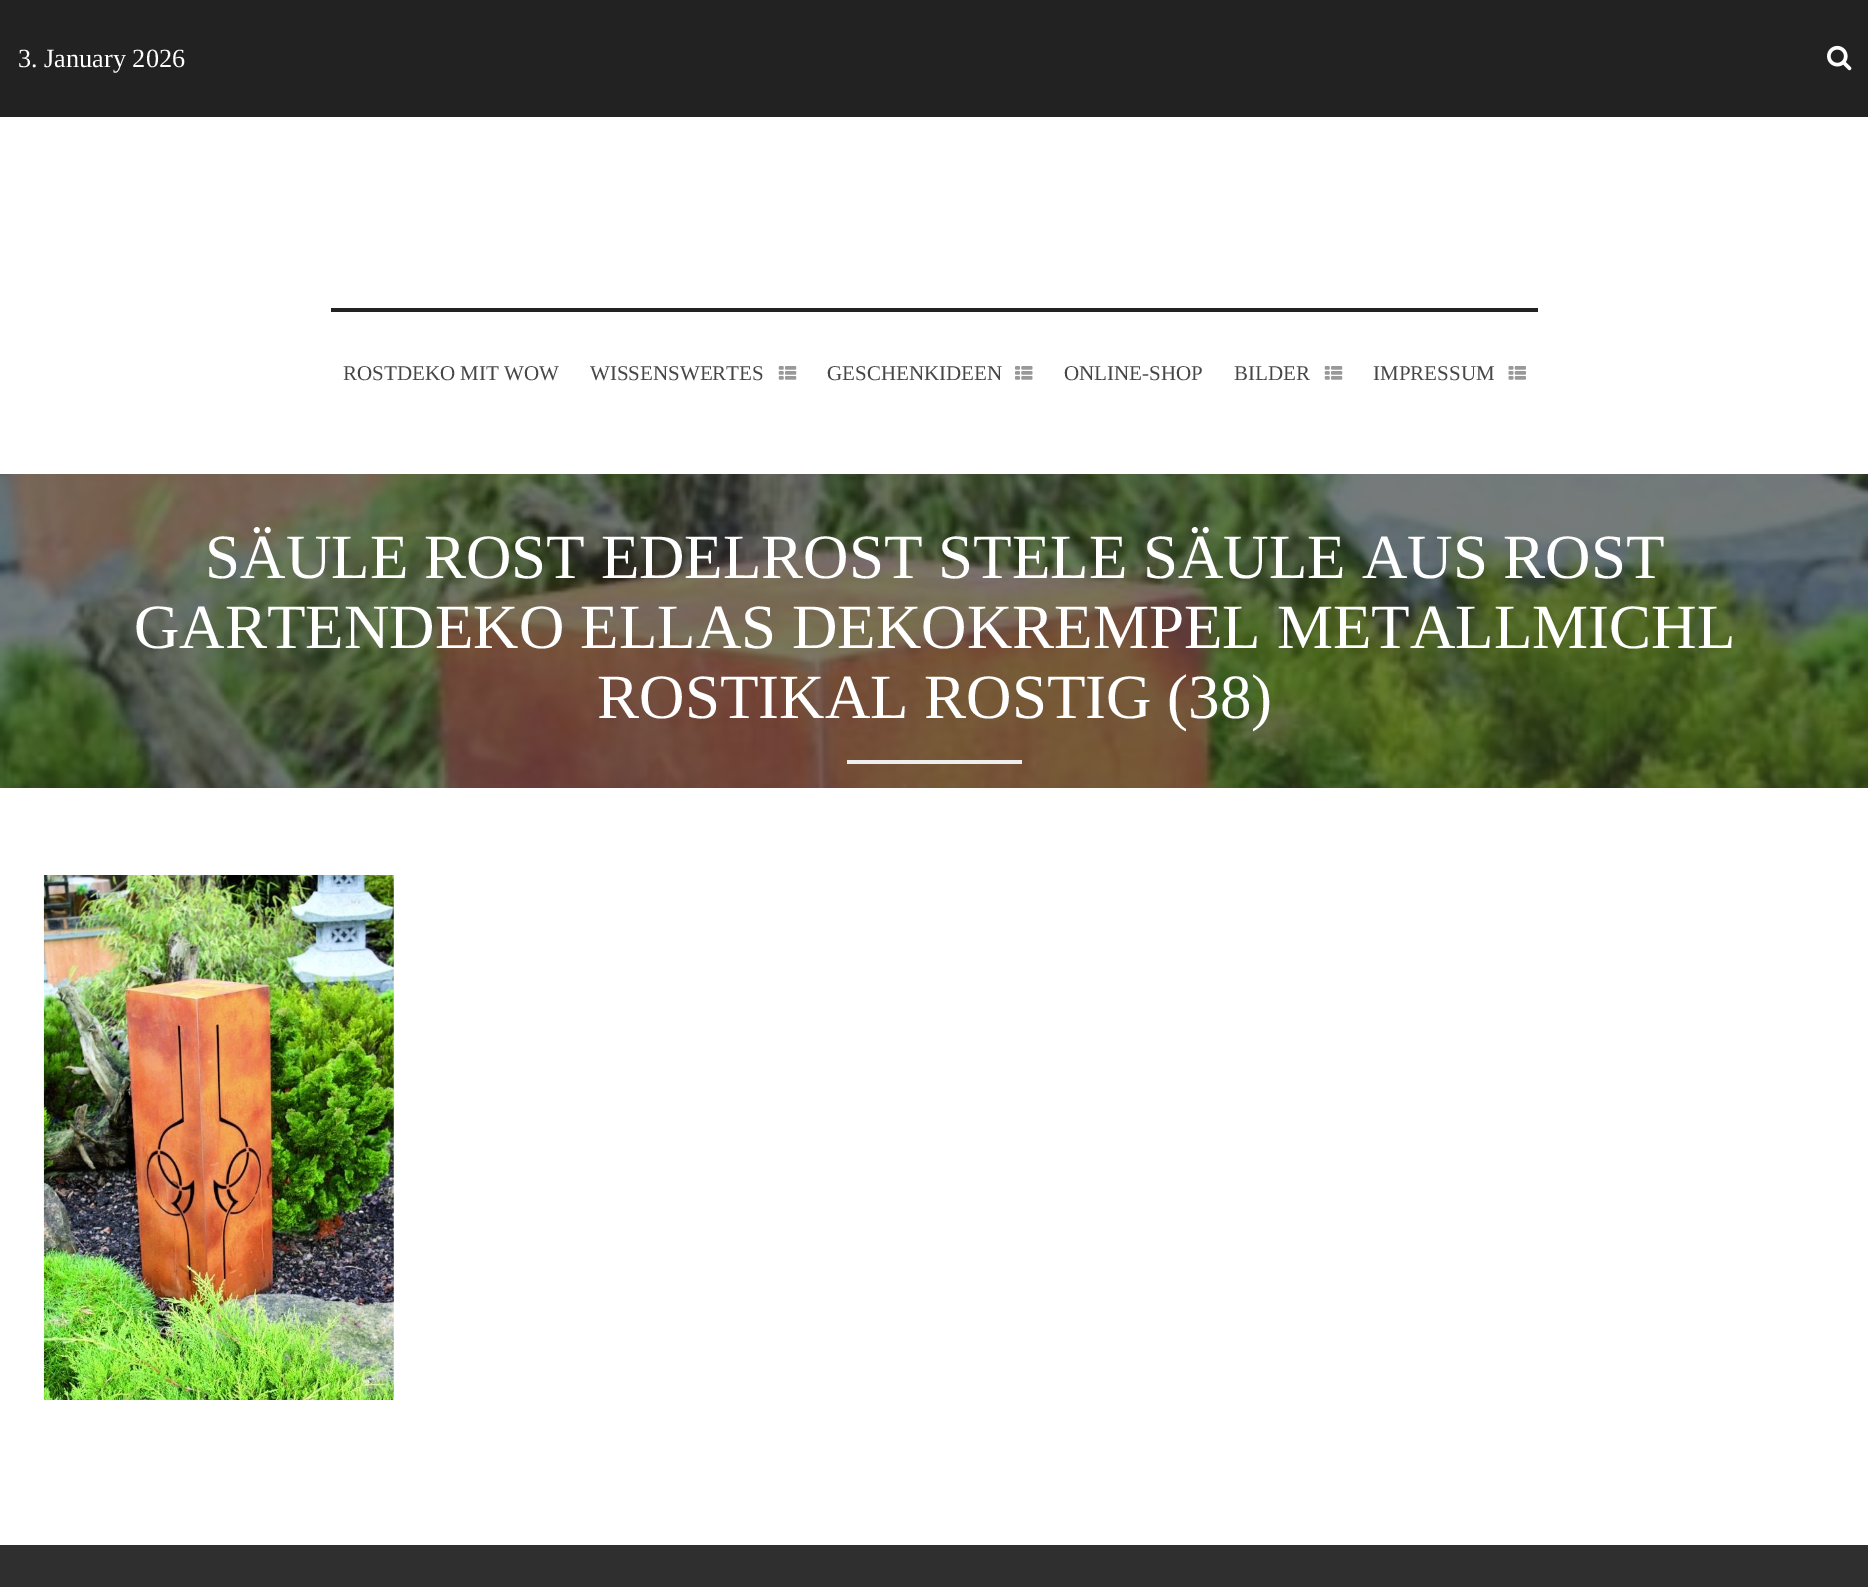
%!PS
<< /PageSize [1868 1587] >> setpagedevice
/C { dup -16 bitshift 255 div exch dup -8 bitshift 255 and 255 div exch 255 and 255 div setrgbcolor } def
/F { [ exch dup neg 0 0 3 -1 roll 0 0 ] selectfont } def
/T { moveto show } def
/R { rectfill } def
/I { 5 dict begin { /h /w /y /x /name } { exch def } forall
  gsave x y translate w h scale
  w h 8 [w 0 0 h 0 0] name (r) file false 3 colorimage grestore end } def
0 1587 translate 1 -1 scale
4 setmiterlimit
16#FFFFFF C
0 0 1868 1587 R
16#222222 C
0 0 1868 117 R
/LiberationSerif-Regular 26.25 F
16#FFFFFF C
(3. January 2026) 18 67 T
(1.rgb) 1827 45 25 26 I
16#222222 C
331 308 1207 4 R
/LiberationSerif-Regular 21 F
16#464646 C
(ROSTDEKO MIT WOW) 343 380 T
(WISSENSWERTES) 590 380 T
(2.rgb) 778 366 19 14 I
(GESCHENKIDEEN) 827 380 T
(3.rgb) 1015 366 18 14 I
(ONLINE-SHOP) 1064 380 T
(BILDER) 1234 380 T
(2.rgb) 1324 366 19 14 I
(IMPRESSUM) 1373 380 T
(4.rgb) 1508 366 18 14 I
(5.rgb) 0 474 1868 314 I
/LiberationSerif-Regular 63 F
16#FFFFFF C
(SÄULE ROST EDELROST STELE SÄULE AUS ROST) 205 578 T
(GARTENDEKO ELLAS DEKOKREMPEL METALLMICHL) 134 648 T
(ROSTIKAL ROSTIG \(38\)) 597 718 T
16#EEEEEE C
847 760 175 4 R
(6.rgb) 43 875 351 525 I
16#2F2F2F C
0 1545 1868 42 R
showpage
